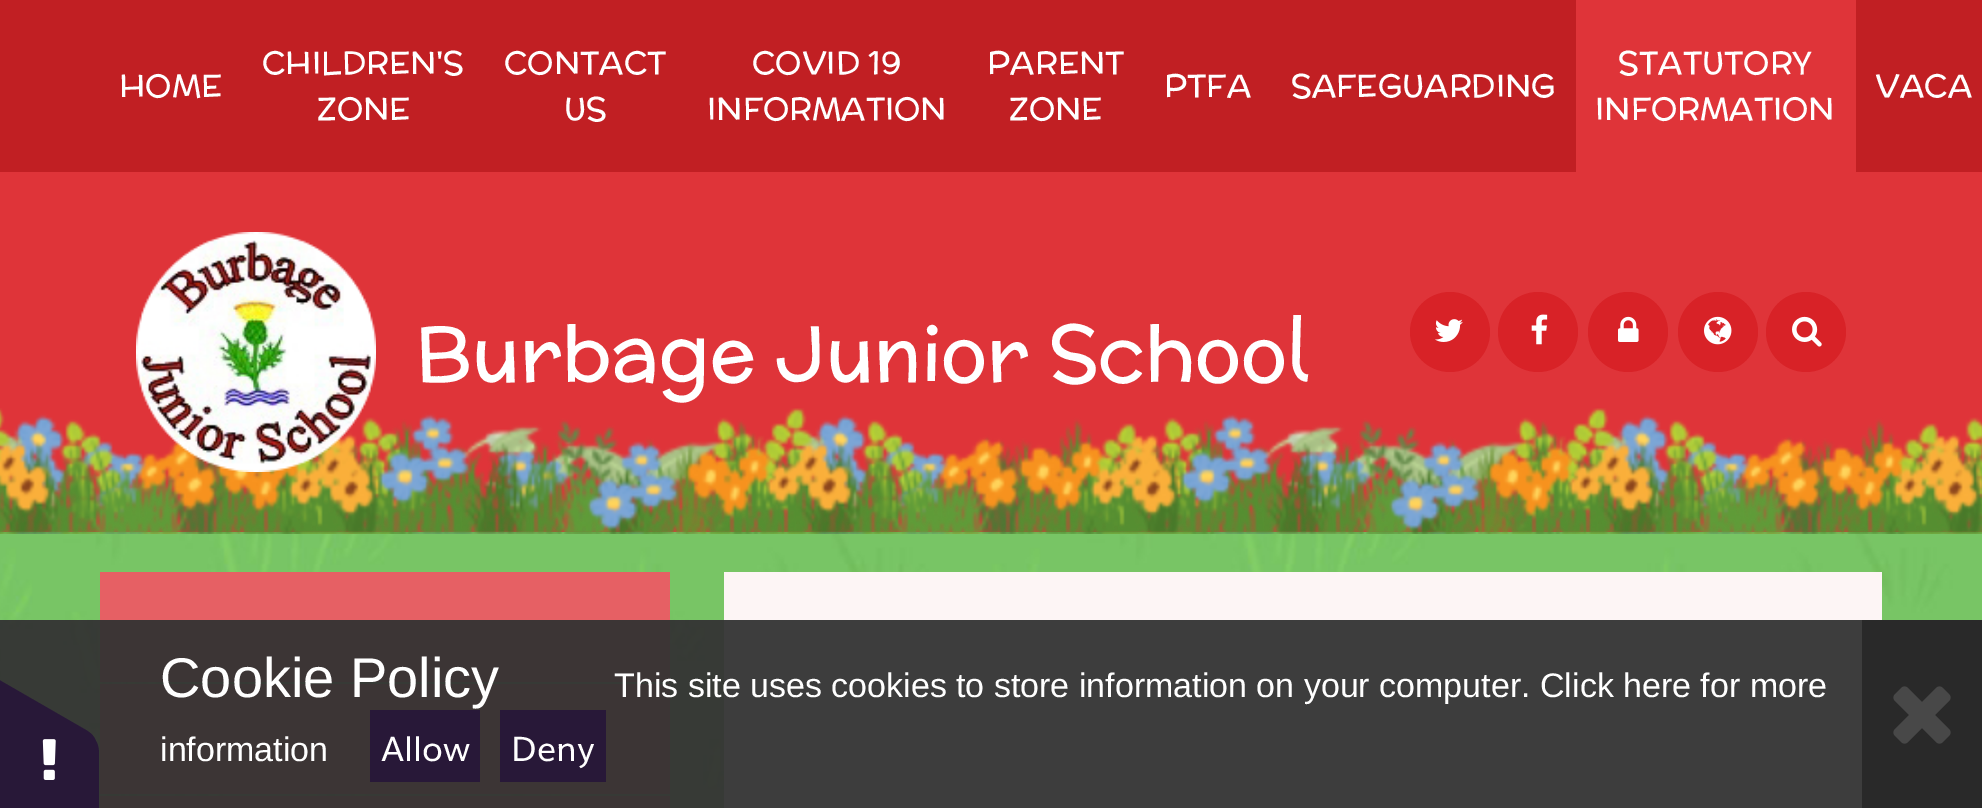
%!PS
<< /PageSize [1982 808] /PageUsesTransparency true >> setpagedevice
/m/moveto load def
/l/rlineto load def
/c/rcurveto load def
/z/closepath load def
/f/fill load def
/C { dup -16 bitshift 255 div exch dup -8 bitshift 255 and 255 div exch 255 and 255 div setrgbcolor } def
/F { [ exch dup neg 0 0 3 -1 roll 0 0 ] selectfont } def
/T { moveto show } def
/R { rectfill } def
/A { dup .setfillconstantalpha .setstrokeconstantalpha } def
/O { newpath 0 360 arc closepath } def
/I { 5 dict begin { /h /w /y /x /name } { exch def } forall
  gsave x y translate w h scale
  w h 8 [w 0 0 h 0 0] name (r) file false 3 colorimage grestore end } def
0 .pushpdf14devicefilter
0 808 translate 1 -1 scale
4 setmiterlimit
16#DF3439 C
0 0 1982 808 R
16#C11F23 C
0 0 1982 172 R
/McLaren-Regular 32 F
16#FFFFFF C
(HOME) 119 97 T
(CHILDREN'S) 262 74 T
(ZONE) 317 120 T
(CONTACT) 504 74 T
(US) 564 120 T
(COVID 19) 752 74 T
(INFORMATION) 707 120 T
(PARENT) 987 74 T
(ZONE) 1009 120 T
(PTFA) 1164 97 T
(SAFEGUARDING) 1291 97 T
16#DF3439 C
1576 0 280 172 R
16#FFFFFF C
(STATUTORY) 1618 74 T
(INFORMATION) 1595 120 T
(VACA) 1875 97 T
(8.rgb) 0 532 1982 276 I
(7.rgb) 0 408 1982 126 I
(1.rgb) 136 232 240 240 I
/McLaren-Regular 76.75 F
(Burbage Junior School) 415 380 T
16#D82227 C
1450 332 40 O f
(2.rgb) 1435 319 28 23 I
1538 332 40 O f
(3.rgb) 1531 314 17 31 I
1628 332 40 O f
(4.rgb) 1618 316 21 26 I
1718 332 40 O f
(5.rgb) 1704 316 28 29 I
1806 332 40 O f
(6.rgb) 1792 316 30 31 I
16#E66064 C
100 572 570 110 R
100 684 570 110 R
100 796 570 12 R
16#FDF5F5 C
724 572 1158 236 R
0.95 A
16#333333 C
0 620 1862 188 R
1 A
16#281838 C
99 754 m 0 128 l 0 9 -3 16 -8 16 c -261 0 l -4 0 -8 -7 -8 -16 c 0 -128 l 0 -9 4 -16 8 -16 c 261 0 l 5 0 8 7 8 16 c z f
-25 666 m 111 64 l 7 4 12 11 9 15 c -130 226 l -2 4 -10 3 -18 -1 c -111 -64 l -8 -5 -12 -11 -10 -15 c 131 -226 l 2 -4 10 -4 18 1 c z f
(9.rgb) 42 739 14 41 I
/LiberationSans-Regular 56 F
16#FFFFFF C
(Cookie Policy) 160 697 T
/LiberationSans-Regular 34 F
(This site uses cookies to store information on your computer. Click here for more) 614 697 T
(information) 160 761 T
16#281838 C
370 710 110 72 R
/Muli-Regular 34 F
16#FFFFFF C
(Allow) 381 761 T
16#281838 C
500 710 106 72 R
16#FFFFFF C
(Deny) 511 761 T
16#292929 C
1862 620 120 188 R
(10.rgb) 1893 686 58 58 I
.poppdf14devicefilter showpage
